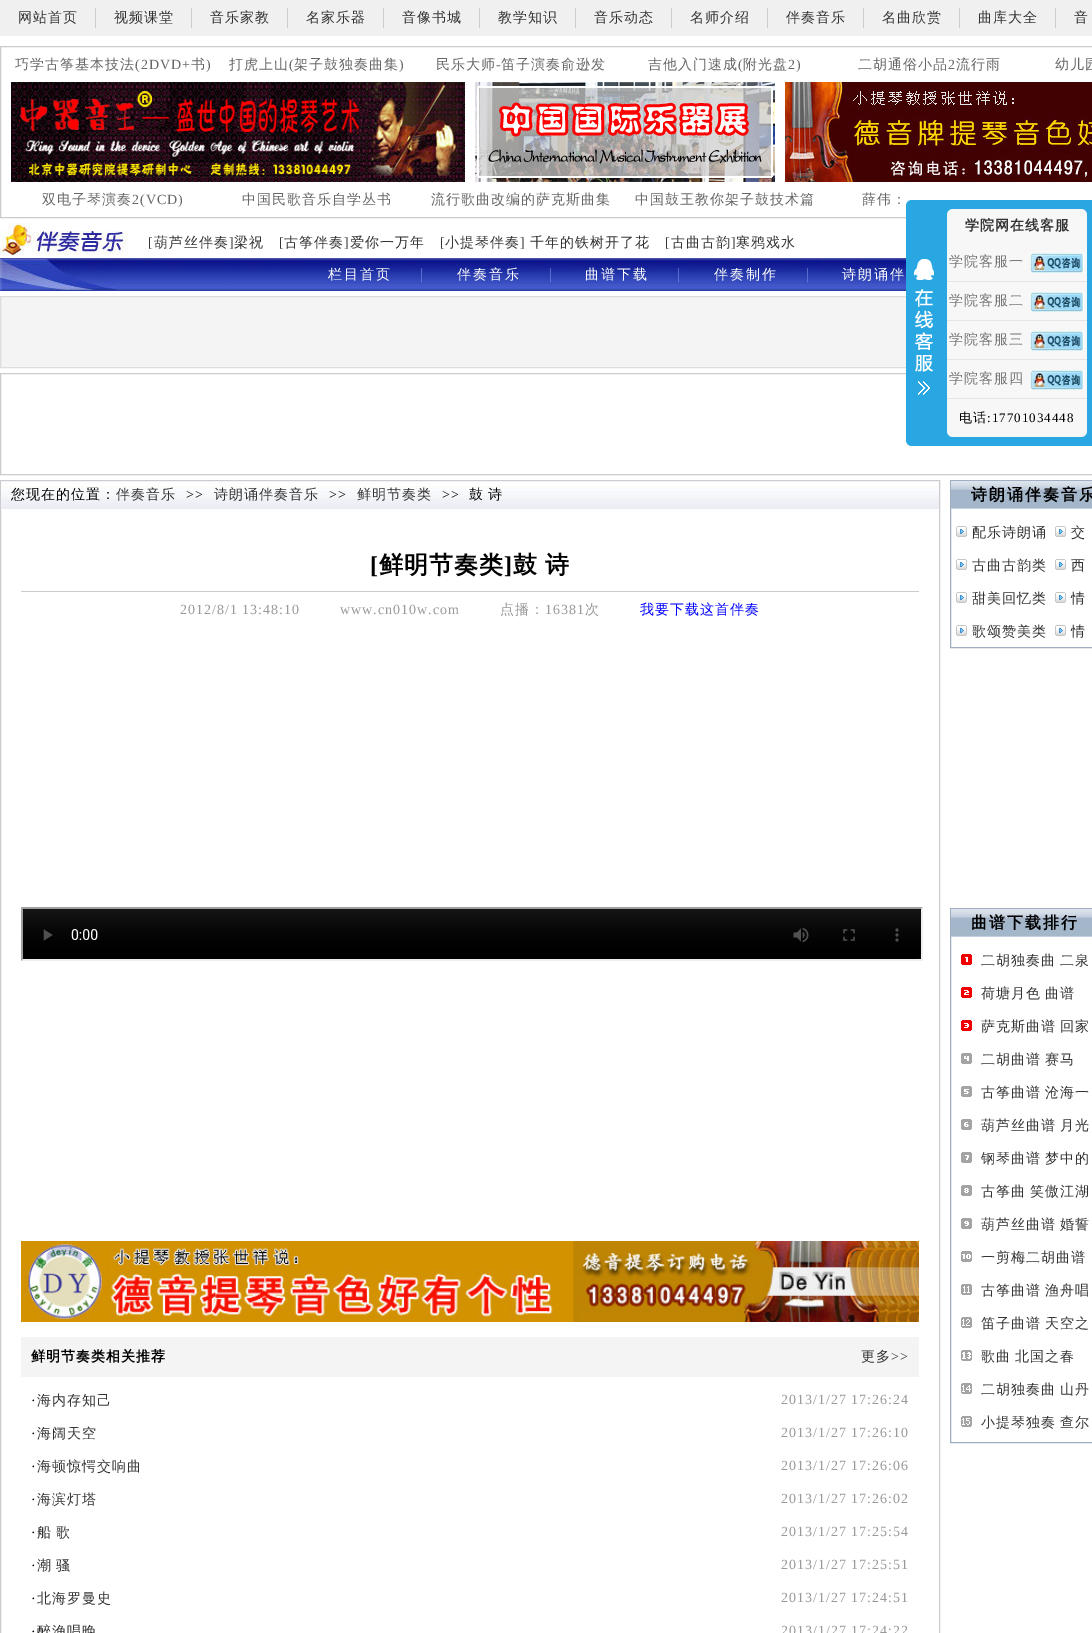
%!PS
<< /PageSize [1092 1633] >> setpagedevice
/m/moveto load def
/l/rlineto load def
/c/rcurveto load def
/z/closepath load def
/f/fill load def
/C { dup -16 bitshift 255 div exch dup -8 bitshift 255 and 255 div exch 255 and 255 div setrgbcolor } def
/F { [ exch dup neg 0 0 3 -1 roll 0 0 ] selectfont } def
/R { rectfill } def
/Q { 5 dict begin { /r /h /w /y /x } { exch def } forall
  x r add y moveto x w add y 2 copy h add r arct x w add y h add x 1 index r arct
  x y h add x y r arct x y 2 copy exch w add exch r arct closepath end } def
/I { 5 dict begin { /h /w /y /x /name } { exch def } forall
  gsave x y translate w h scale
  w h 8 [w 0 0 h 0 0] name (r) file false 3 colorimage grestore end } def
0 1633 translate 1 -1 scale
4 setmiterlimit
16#FFFFFF C
0 0 1092 1633 R
16#F0F0F0 C
0 0 1092 36 R
16#CCCCCC C
95 8 1 20 R
/WenQuanYiZenHei-Medium 14 F
16#333333 C
18 22 m 1 0 (网站首页) ashow
16#CCCCCC C
191 8 1 20 R
16#333333 C
114 22 m 1 0 (视频课堂) ashow
16#CCCCCC C
287 8 1 20 R
16#333333 C
210 22 m 1 0 (音乐家教) ashow
16#CCCCCC C
383 8 1 20 R
16#333333 C
306 22 m 1 0 (名家乐器) ashow
16#CCCCCC C
479 8 1 20 R
16#333333 C
402 22 m 1 0 (音像书城) ashow
16#CCCCCC C
575 8 1 20 R
16#333333 C
498 22 m 1 0 (教学知识) ashow
16#CCCCCC C
671 8 1 20 R
16#333333 C
594 22 m 1 0 (音乐动态) ashow
16#CCCCCC C
767 8 1 20 R
16#333333 C
690 22 m 1 0 (名师介绍) ashow
16#CCCCCC C
863 8 1 20 R
16#333333 C
786 22 m 1 0 (伴奏音乐) ashow
16#CCCCCC C
959 8 1 20 R
16#333333 C
882 22 m 1 0 (名曲欣赏) ashow
16#CCCCCC C
1055 8 1 20 R
16#333333 C
978 22 m 1 0 (曲库大全) ashow
1074 22 m 1 0 (音) ashow
16#CCCCCC C
.5 46.5 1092 171 rectstroke
16#666666 C
15 69 m 1 0 (巧学古筝基本技法) ashow
/LiberationSerif-Regular 14 F
135 69 m 1 0 (\(2DVD+) ashow
/WenQuanYiZenHei-Medium 14 F
191 69 m 1 0 (书) ashow
/LiberationSerif-Regular 14 F
206 69 m 1 0 (\)) ashow
/WenQuanYiZenHei-Medium 14 F
229 69 m 1 0 (打虎上山) ashow
/LiberationSerif-Regular 14 F
289 69 m 1 0 (\() ashow
/WenQuanYiZenHei-Medium 14 F
294 69 m 1 0 (架子鼓独奏曲集) ashow
/LiberationSerif-Regular 14 F
399 69 m 1 0 (\)) ashow
/WenQuanYiZenHei-Medium 14 F
436 69 m 1 0 (民乐大师) ashow
/LiberationSerif-Regular 14 F
496 69 m 1 0 (-) ashow
/WenQuanYiZenHei-Medium 14 F
501 69 m 1 0 (笛子演奏俞逊发) ashow
648 69 m 1 0 (吉他入门速成) ashow
/LiberationSerif-Regular 14 F
738 69 m 1 0 (\() ashow
/WenQuanYiZenHei-Medium 14 F
743 69 m 1 0 (附光盘) ashow
/LiberationSerif-Regular 14 F
788 69 m 1 0 (2\)) ashow
/WenQuanYiZenHei-Medium 14 F
858 69 m 1 0 (二胡通俗小品) ashow
/LiberationSerif-Regular 14 F
948 69 m 1 0 (2) ashow
/WenQuanYiZenHei-Medium 14 F
956 69 m 1 0 (流行雨) ashow
1055 69 m 1 0 (幼儿园) ashow
(1.rgb) 11 82 454 100 I
(2.rgb) 475 82 300 100 I
(3.rgb) 785 82 307 100 I
42 204 m 1 0 (双电子琴演奏) ashow
/LiberationSerif-Regular 14 F
132 204 m 1 0 (2\(VCD\)) ashow
/WenQuanYiZenHei-Medium 14 F
242 204 m 1 0 (中国民歌音乐自学丛书) ashow
431 204 m 1 0 (流行歌曲改编的萨克斯曲集) ashow
635 204 m 1 0 (中国鼓王教你架子鼓技术篇) ashow
862 204 m 1 0 (薛伟：) ashow
(4.rgb) 0 223 128 32 I
/LiberationSerif-Regular 14 F
16#333333 C
148 247 m 1 0 ([) ashow
/WenQuanYiZenHei-Medium 14 F
154 247 m 1 0 (葫芦丝伴奏) ashow
/LiberationSerif-Regular 14 F
229 247 m 1 0 (]) ashow
/WenQuanYiZenHei-Medium 14 F
234 247 m 1 0 (梁祝) ashow
/LiberationSerif-Regular 14 F
279 247 m 1 0 ([) ashow
/WenQuanYiZenHei-Medium 14 F
284 247 m 1 0 (古筝伴奏) ashow
/LiberationSerif-Regular 14 F
344 247 m 1 0 (]) ashow
/WenQuanYiZenHei-Medium 14 F
350 247 m 1 0 (爱你一万年) ashow
/LiberationSerif-Regular 14 F
440 247 m 1 0 ([) ashow
/WenQuanYiZenHei-Medium 14 F
445 247 m 1 0 (小提琴伴奏) ashow
/LiberationSerif-Regular 14 F
520 247 m 1 0 (]) ashow
/WenQuanYiZenHei-Medium 14 F
530 247 m 1 0 (千年的铁树开了花) ashow
/LiberationSerif-Regular 14 F
665 247 m 1 0 ([) ashow
/WenQuanYiZenHei-Medium 14 F
671 247 m 1 0 (古曲古韵) ashow
/LiberationSerif-Regular 14 F
731 247 m 1 0 (]) ashow
/WenQuanYiZenHei-Medium 14 F
736 247 m 1 0 (寒鸦戏水) ashow
(5.rgb) 0 258 906 33 I
(6.rgb) 421 268 1 14 I
16#FFFFFF C
328 279 m 2 0 (栏目首页) ashow
(6.rgb) 550 268 1 14 I
457 279 m 2 0 (伴奏音乐) ashow
(6.rgb) 678 268 1 14 I
585 279 m 2 0 (曲谱下载) ashow
(6.rgb) 807 268 1 14 I
714 279 m 2 0 (伴奏制作) ashow
842 279 m 2 0 (诗朗诵伴) ashow
16#F4F4F4 C
1 297 905 70 R
16#DDDDDD C
.5 296.5 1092 71 rectstroke
16#CCCCCC C
.5 373.5 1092 101 rectstroke
16#29A7E2 C
912 200 m 180 0 l 0 246 l -180 0 l -3.5 0 -6 -2.5 -6 -6 c 0 -234 l 0 -3.5 2.5 -6 6 -6 c z f
(7.rgb) 914 259 20 136 I
16#F7F7F7 C
947 209 140 228 6 Q f
/WenQuanYiZenHei-Bold 14 F
16#333333 C
965 230 m 1 0 (学院网在线客服) ashow
16#E6E4E4 C
947 281 140 1 R
/WenQuanYiZenHei-Medium 14 F
16#777777 C
949 266 m 1 0 (学院客服一) ashow
(8.rgb) 1030 253 54 20 I
16#E6E4E4 C
947 320 140 1 R
16#777777 C
949 305 m 1 0 (学院客服二) ashow
(8.rgb) 1030 292 54 20 I
16#E6E4E4 C
947 359 140 1 R
16#777777 C
949 344 m 1 0 (学院客服三) ashow
(8.rgb) 1030 331 54 20 I
16#E6E4E4 C
947 398 140 1 R
16#777777 C
949 383 m 1 0 (学院客服四) ashow
(8.rgb) 1030 370 54 20 I
/WenQuanYiZenHei-Medium 13 F
16#000000 C
959 422 m 1 0 (电话) ashow
/LiberationSerif-Regular 13 F
987 422 m 1 0 (:17701034448) ashow
16#CCCCCC C
.5 480.5 939 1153 rectstroke
(9.rgb) 1 481 938 28 I
/WenQuanYiZenHei-Medium 14 F
16#000000 C
11 499 m 1 0 (您现在的位置：) ashow
16#333333 C
116 499 m 1 0 (伴奏音乐) ashow
/LiberationSerif-Regular 14 F
16#000000 C
186 499 m 1 0 (>>) ashow
/WenQuanYiZenHei-Medium 14 F
16#333333 C
214 499 m 1 0 (诗朗诵伴奏音乐) ashow
/LiberationSerif-Regular 14 F
16#000000 C
329 499 m 1 0 (>>) ashow
/WenQuanYiZenHei-Medium 14 F
16#333333 C
357 499 m 1 0 (鲜明节奏类) ashow
/LiberationSerif-Regular 14 F
16#000000 C
442 499 m 1 0 (>>) ashow
/WenQuanYiZenHei-Medium 14 F
469 499 m -1 0 32 1 0 (鼓 诗) awidthshow
16#CCCCCC C
21 591 898 1 R
/LiberationSerif-Bold 24 F
16#000000 C
370 573 m 1 0 ([) ashow
/WenQuanYiZenHei-Bold 24 F
379 573 m 1 0 (鲜明节奏类) ashow
/LiberationSerif-Bold 24 F
504 573 m 1 0 (]) ashow
/WenQuanYiZenHei-Bold 24 F
513 573 m -1 0 32 1 0 (鼓 诗) awidthshow
/LiberationSerif-Regular 14 F
16#999999 C
180 614 m 1 0 (2012/8/1 13:48:10) ashow
340 614 m 1 0 (www.cn010w.com) ashow
/WenQuanYiZenHei-Medium 14 F
500 614 m 1 0 (点播：) ashow
/LiberationSerif-Regular 14 F
545 614 m 1 0 (16381) ashow
/WenQuanYiZenHei-Medium 14 F
585 614 m 1 0 (次) ashow
16#0000FF C
640 614 m 1 0 (我要下载这首伴奏) ashow
16#9F9F9F C
21 907 m 902 0 l -2 2 l -898 0 l z f
16#EEEEEE C
923 907 m 0 54 l -2 -2 l 0 -50 l z f
923 961 m -902 0 l 2 -2 l 898 0 l z f
16#9F9F9F C
21 961 m 0 -54 l 2 2 l 0 50 l z f
(10.rgb) 23 909 898 50 I
(11.rgb) 21 1241 898 81 I
16#F4F4F4 C
21 1337 898 40 R
/WenQuanYiZenHei-Bold 14 F
16#000000 C
31 1361 m 1 0 (鲜明节奏类相关推荐) ashow
/WenQuanYiZenHei-Medium 14 F
16#333333 C
861 1361 m 1 0 (更多) ashow
/LiberationSerif-Regular 14 F
891 1361 m 1 0 (>>) ashow
16#000000 C
31 1405 m 1 0 (·) ashow
/WenQuanYiZenHei-Medium 14 F
16#333333 C
37 1405 m 1 0 (海内存知己) ashow
/LiberationSerif-Regular 14 F
16#999999 C
781 1404 m 1 0 (2013/1/27 17:26:24) ashow
16#000000 C
31 1438 m 1 0 (·) ashow
/WenQuanYiZenHei-Medium 14 F
16#333333 C
37 1438 m 1 0 (海阔天空) ashow
/LiberationSerif-Regular 14 F
16#999999 C
781 1437 m 1 0 (2013/1/27 17:26:10) ashow
16#000000 C
31 1471 m 1 0 (·) ashow
/WenQuanYiZenHei-Medium 14 F
16#333333 C
37 1471 m 1 0 (海顿惊愕交响曲) ashow
/LiberationSerif-Regular 14 F
16#999999 C
781 1470 m 1 0 (2013/1/27 17:26:06) ashow
16#000000 C
31 1504 m 1 0 (·) ashow
/WenQuanYiZenHei-Medium 14 F
16#333333 C
37 1504 m 1 0 (海滨灯塔) ashow
/LiberationSerif-Regular 14 F
16#999999 C
781 1503 m 1 0 (2013/1/27 17:26:02) ashow
16#000000 C
31 1537 m 1 0 (·) ashow
/WenQuanYiZenHei-Medium 14 F
16#333333 C
37 1537 m -1 0 32 1 0 (船 歌) awidthshow
/LiberationSerif-Regular 14 F
16#999999 C
781 1536 m 1 0 (2013/1/27 17:25:54) ashow
16#000000 C
31 1570 m 1 0 (·) ashow
/WenQuanYiZenHei-Medium 14 F
16#333333 C
37 1570 m -1 0 32 1 0 (潮 骚) awidthshow
/LiberationSerif-Regular 14 F
16#999999 C
781 1569 m 1 0 (2013/1/27 17:25:51) ashow
16#000000 C
31 1603 m 1 0 (·) ashow
/WenQuanYiZenHei-Medium 14 F
16#333333 C
37 1603 m 1 0 (北海罗曼史) ashow
/LiberationSerif-Regular 14 F
16#999999 C
781 1602 m 1 0 (2013/1/27 17:24:51) ashow
16#000000 C
31 1636 m 1 0 (·) ashow
/WenQuanYiZenHei-Medium 14 F
16#333333 C
37 1636 m 1 0 (醉渔唱晚) ashow
/LiberationSerif-Regular 14 F
16#999999 C
781 1635 m 1 0 (2013/1/27 17:24:22) ashow
16#9FAEC0 C
950.5 480.5 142 167 rectstroke
(12.rgb) 951 481 141 28 I
/WenQuanYiZenHei-Bold 16 F
16#000000 C
971 500 m 2 0 (诗朗诵伴奏音乐) ashow
(13.rgb) 956 526 11 11 I
/WenQuanYiZenHei-Medium 14 F
16#333333 C
972 537 m 1 0 (配乐诗朗诵) ashow
(13.rgb) 1055 526 11 11 I
1071 537 m 1 0 (交) ashow
(13.rgb) 956 559 11 11 I
972 570 m 1 0 (古曲古韵类) ashow
(13.rgb) 1055 559 11 11 I
1071 570 m 1 0 (西) ashow
(13.rgb) 956 592 11 11 I
972 603 m 1 0 (甜美回忆类) ashow
(13.rgb) 1055 592 11 11 I
1071 603 m 1 0 (情) ashow
(13.rgb) 956 625 11 11 I
972 636 m 1 0 (歌颂赞美类) ashow
(13.rgb) 1055 625 11 11 I
1071 636 m 1 0 (情) ashow
16#9FAEC0 C
950.5 908.5 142 534 rectstroke
(12.rgb) 951 909 141 28 I
/WenQuanYiZenHei-Bold 16 F
16#000000 C
971 928 m 2 0 (曲谱下载排行) ashow
(14.rgb) 961 954 11 11 I
/WenQuanYiZenHei-Medium 14 F
16#333333 C
981 965 m -1 0 32 1 0 (二胡独奏曲 二泉) awidthshow
(15.rgb) 961 987 11 11 I
981 998 m -1 0 32 1 0 (荷塘月色 曲谱) awidthshow
(16.rgb) 961 1020 11 11 I
981 1031 m -1 0 32 1 0 (萨克斯曲谱 回家) awidthshow
(17.rgb) 961 1053 11 11 I
981 1064 m -1 0 32 1 0 (二胡曲谱 赛马) awidthshow
(18.rgb) 961 1086 11 11 I
981 1097 m -1 0 32 1 0 (古筝曲谱 沧海一) awidthshow
(19.rgb) 961 1119 11 11 I
981 1130 m -1 0 32 1 0 (葫芦丝曲谱 月光) awidthshow
(20.rgb) 961 1152 11 11 I
981 1163 m -1 0 32 1 0 (钢琴曲谱 梦中的) awidthshow
(21.rgb) 961 1185 11 11 I
981 1196 m -1 0 32 1 0 (古筝曲 笑傲江湖) awidthshow
(22.rgb) 961 1218 11 11 I
981 1229 m -1 0 32 1 0 (葫芦丝曲谱 婚誓) awidthshow
(23.rgb) 961 1251 11 11 I
981 1262 m 1 0 (一剪梅二胡曲谱) ashow
(24.rgb) 961 1284 11 11 I
981 1295 m -1 0 32 1 0 (古筝曲谱 渔舟唱) awidthshow
(25.rgb) 961 1317 11 11 I
981 1328 m -1 0 32 1 0 (笛子曲谱 天空之) awidthshow
(26.rgb) 961 1350 11 11 I
981 1361 m -1 0 32 1 0 (歌曲 北国之春) awidthshow
(27.rgb) 961 1383 11 11 I
981 1394 m -1 0 32 1 0 (二胡独奏曲 山丹) awidthshow
(28.rgb) 961 1416 11 11 I
981 1427 m -1 0 32 1 0 (小提琴独奏 查尔) awidthshow
showpage
